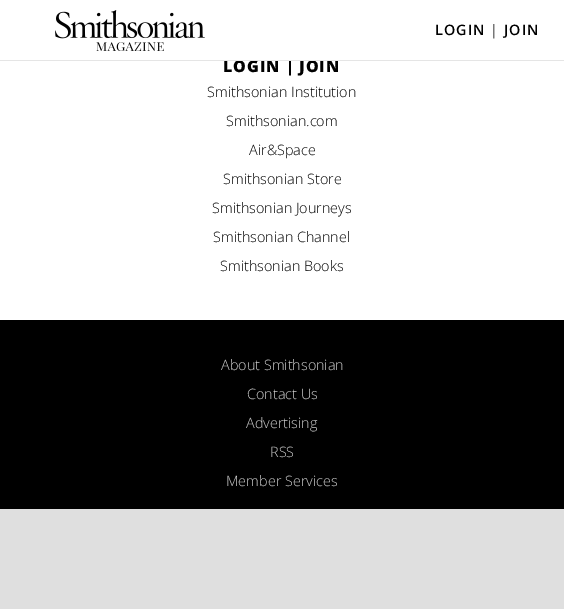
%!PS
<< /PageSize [564 609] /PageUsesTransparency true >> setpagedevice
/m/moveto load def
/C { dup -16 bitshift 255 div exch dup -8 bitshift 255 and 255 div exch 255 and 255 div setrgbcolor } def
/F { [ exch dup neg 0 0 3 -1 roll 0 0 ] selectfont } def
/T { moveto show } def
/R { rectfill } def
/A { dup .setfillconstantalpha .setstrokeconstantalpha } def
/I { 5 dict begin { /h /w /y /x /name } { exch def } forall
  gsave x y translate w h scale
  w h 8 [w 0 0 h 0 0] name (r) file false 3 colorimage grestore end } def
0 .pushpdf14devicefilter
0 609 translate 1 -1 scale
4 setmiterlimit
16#FFFFFF C
0 0 564 609 R
/OpenSans-ExtraBold 16 F
16#000000 C
223 72 m 1 0 (LOGIN |) ashow
16#FFFFFF C
289 59 3 1 R
16#000000 C
299 72 m 1 0 (JOIN) ashow
16#E5E5E5 C
0 60 564 1 R
(1.rgb) 55 10 150 41 I
/OpenSans-SemiBold 14.4 F
16#000000 C
435 35 m 1 0 (LOGIN) ashow
/OpenSans-Light 14.4 F
490 35 m 1 0 (|) ashow
/OpenSans-SemiBold 14.4 F
504 35 m 1 0 (JOIN) ashow
/OpenSans-Light 14.4 F
(Smithsonian Institution) 207 97 T
(Smithsonian.com) 226 126 T
(Air&Space) 249 155 T
(Smithsonian Store) 223 184 T
(Smithsonian Journeys) 212 213 T
(Smithsonian Channel) 213 242 T
(Smithsonian Books) 220 271 T
0 320 564 289 R
16#CCCCCC C
(About Smithsonian) 221 370 T
(Contact Us) 247 399 T
(Advertising) 246 428 T
(RSS) 270 457 T
(Member Services) 226 486 T
0.9 A
16#F7F7F7 C
0 509 564 100 R
.poppdf14devicefilter showpage
